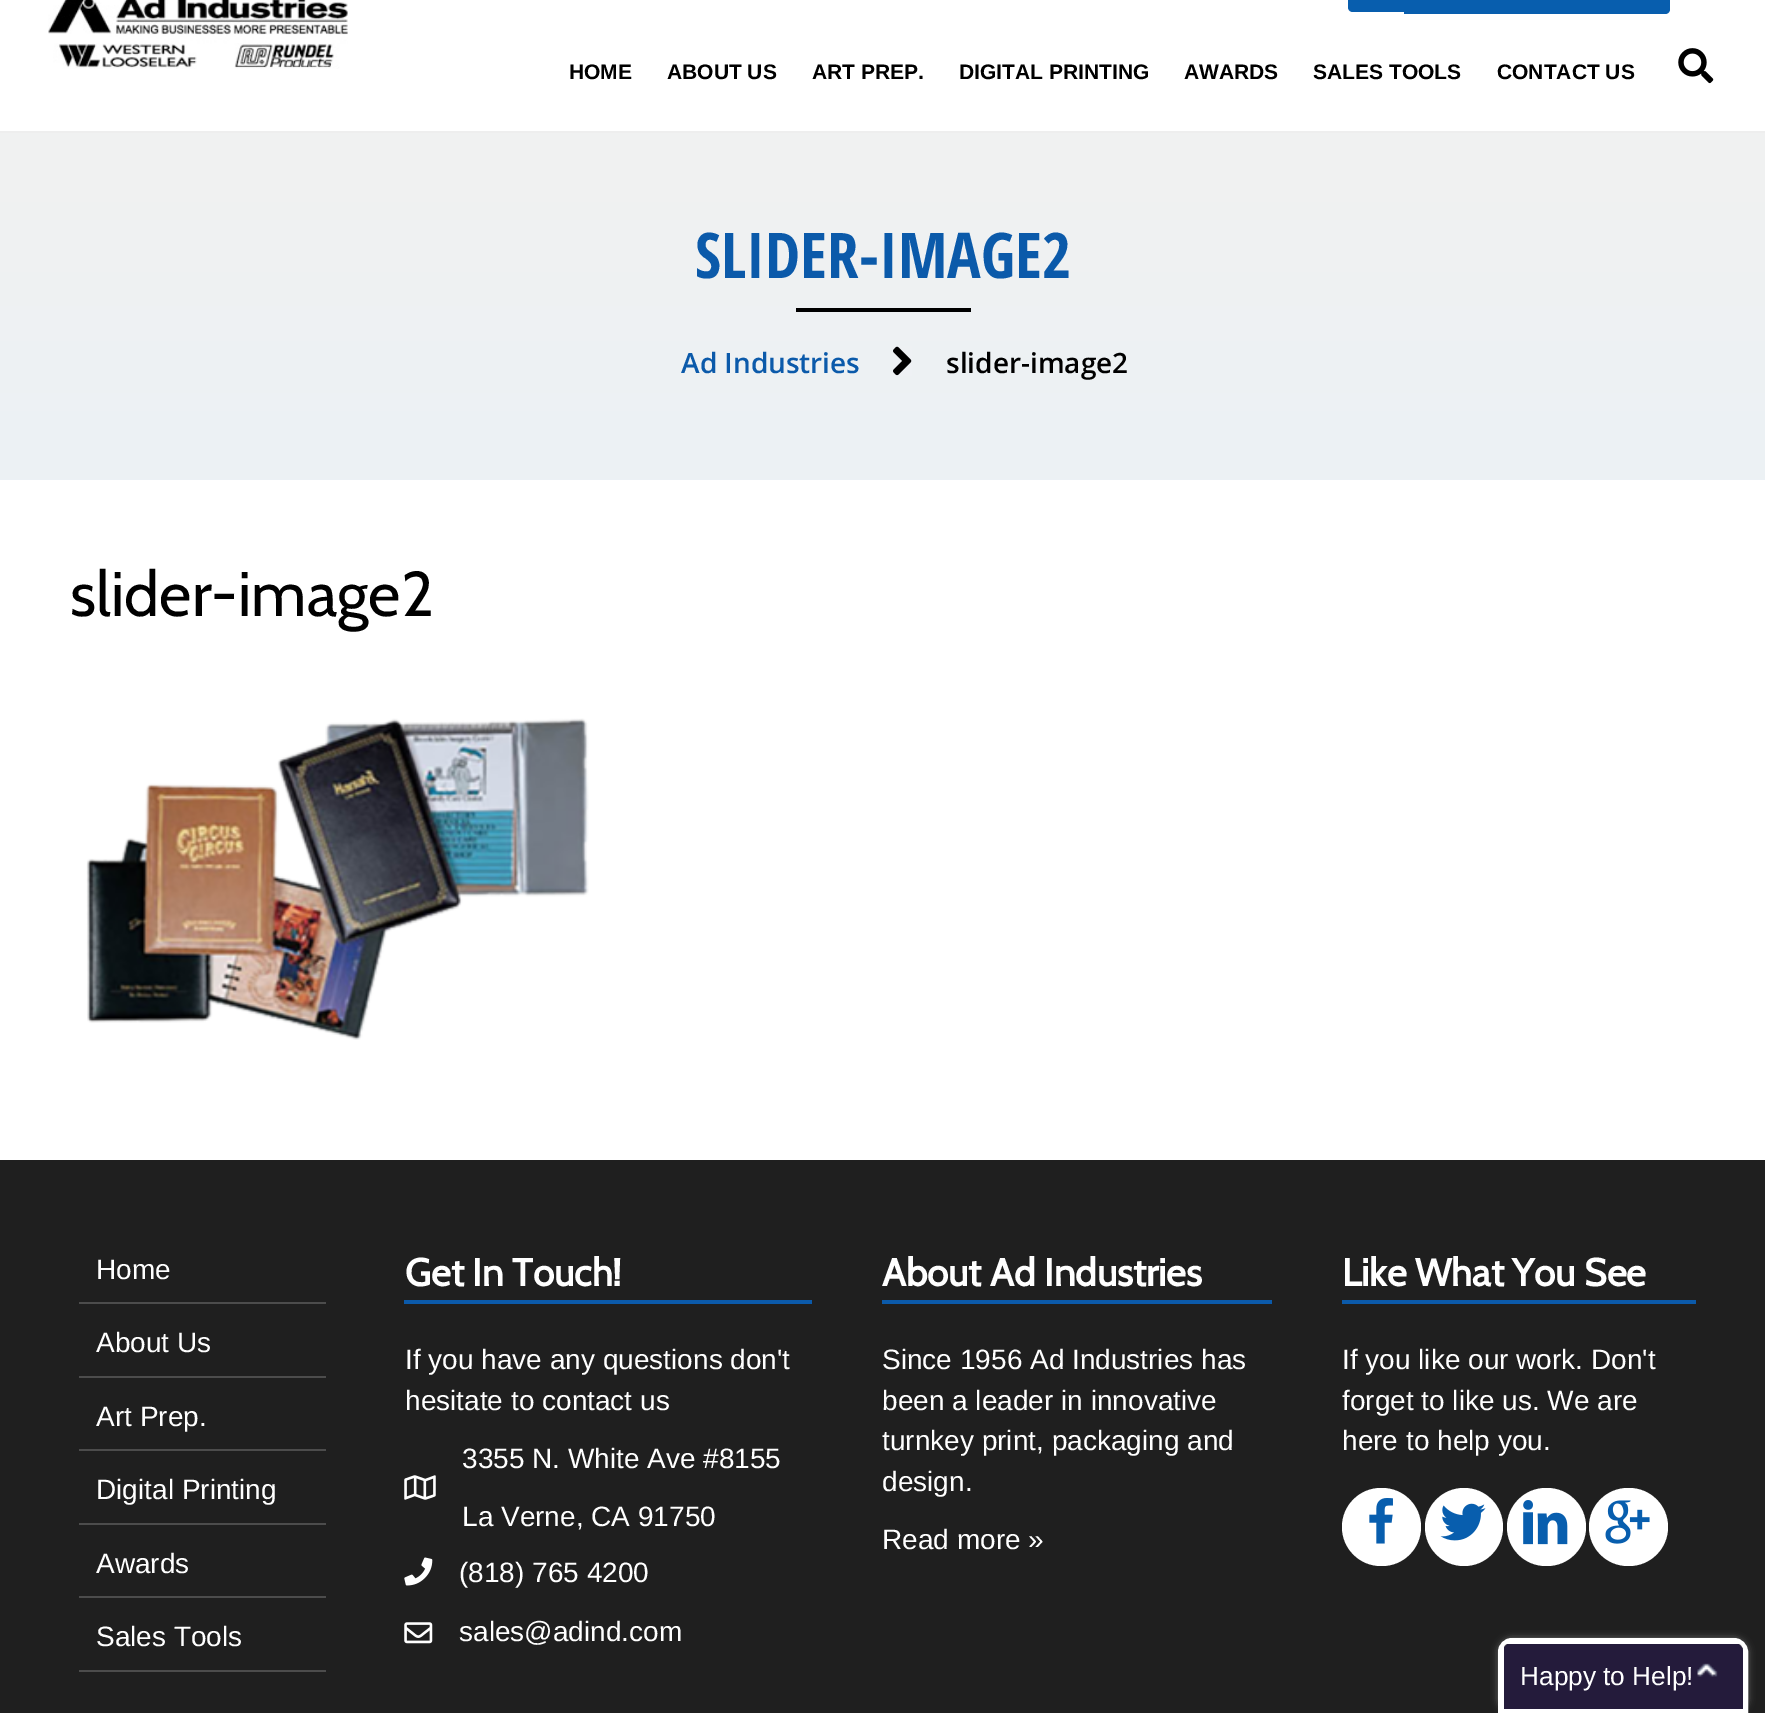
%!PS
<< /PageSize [1765 1713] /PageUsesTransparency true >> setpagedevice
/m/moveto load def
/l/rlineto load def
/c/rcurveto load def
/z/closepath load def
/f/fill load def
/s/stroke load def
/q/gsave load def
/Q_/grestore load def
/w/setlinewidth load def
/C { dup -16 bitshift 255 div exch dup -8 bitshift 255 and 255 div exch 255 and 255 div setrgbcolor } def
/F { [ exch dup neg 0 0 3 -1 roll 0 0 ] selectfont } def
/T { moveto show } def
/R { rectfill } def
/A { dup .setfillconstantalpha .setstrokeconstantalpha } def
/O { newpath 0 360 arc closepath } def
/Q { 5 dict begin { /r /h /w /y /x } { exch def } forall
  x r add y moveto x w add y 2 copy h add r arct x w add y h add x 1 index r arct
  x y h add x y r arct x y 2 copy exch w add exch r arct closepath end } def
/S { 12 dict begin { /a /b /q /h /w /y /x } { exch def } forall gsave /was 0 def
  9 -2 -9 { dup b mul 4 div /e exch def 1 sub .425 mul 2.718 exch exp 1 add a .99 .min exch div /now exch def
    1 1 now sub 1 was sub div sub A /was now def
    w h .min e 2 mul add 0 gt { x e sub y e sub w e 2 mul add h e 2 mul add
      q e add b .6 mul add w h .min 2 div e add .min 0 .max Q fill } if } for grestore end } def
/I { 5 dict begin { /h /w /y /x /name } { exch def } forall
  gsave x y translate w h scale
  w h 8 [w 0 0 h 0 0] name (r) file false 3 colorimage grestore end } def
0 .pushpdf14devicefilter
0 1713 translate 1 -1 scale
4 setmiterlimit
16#FFFFFF C
0 0 1765 1713 R
16#085EAE C
1353 -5 m 51 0 l 0 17 l -51 0 l -3 0 -5 -2 -5 -5 c 0 -7 l 0 -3 2 -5 5 -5 c z f
1404 -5 m 261 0 l 3 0 5 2 5 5 c 0 9 l 0 3 -2 5 -5 5 c -261 0 l z f
16#EEEEEE C
0 131 1765 2 R
(1.rgb) 48 0 300 69 I
/LiberationSans-Bold 21 F
16#000000 C
(HOME) 569 79 T
(ABOUT US) 667 79 T
(ART PREP.) 812 79 T
(DIGITAL PRINTING) 959 79 T
(AWARDS) 1184 79 T
(SALES TOOLS) 1313 79 T
(CONTACT US) 1497 79 T
(2.rgb) 1678 48 36 36 I
q 0 133 m 1765 0 l 0 347 l -1765 0 l z clip newpath
<< /ShadingType 2 /ColorSpace /DeviceRGB /Coords [883 133 883 480] /Extend [true true] /Function << /FunctionType 2 /Domain [0 1] /C0 [.945 .945 .945] /C1 [.925 .945 .961] /N 1 >> >> shfill Q_
/OpenSansCondensed-Bold 63 F
16#0B5AAA C
(SLIDER-IMAGE2) 695 278 T
16#000000 C
796 308 175 4 R
/OpenSans-SemiBold 28 F
16#0B5AAA C
(Ad Industries) 681 373 T
(3.rgb) 893 346 19 30 I
16#000000 C
(slider-image2) 946 373 T
/Cabin-Regular 63 F
(slider-image2) 70 616 T
(4.rgb) 86 718 503 322 I
16#1F1F1F C
0 1160 1765 553 R
16#4C4C4C C
79 1302 247 2 R
/LiberationSans-Regular 28 F
16#FFFFFF C
(Home) 96 1279 T
16#4C4C4C C
79 1376 247 2 R
16#FFFFFF C
(About Us) 96 1352 T
16#4C4C4C C
79 1449 247 2 R
16#FFFFFF C
(Art Prep.) 96 1426 T
16#4C4C4C C
79 1523 247 2 R
16#FFFFFF C
(Digital Printing) 96 1499 T
16#4C4C4C C
79 1596 247 2 R
16#FFFFFF C
(Awards) 96 1573 T
16#4C4C4C C
79 1670 247 2 R
16#FFFFFF C
(Sales Tools) 96 1646 T
16#0B5AAA C
404 1300 408 4 R
/Cabin-Bold 38.5 F
16#FFFFFF C
(Get In Touch!) 405 1286 T
/LiberationSans-Regular 28 F
(If you have any questions don't) 405 1369 T
(hesitate to contact us) 405 1410 T
(5.rgb) 404 1475 32 25 I
(3355 N. White Ave #8155) 462 1468 T
(La Verne, CA 91750) 462 1526 T
(6.rgb) 404 1557 29 29 I
(\(818\) 765 4200) 459 1582 T
(7.rgb) 404 1622 29 22 I
(sales@adind.com) 459 1641 T
16#0B5AAA C
882 1300 390 4 R
/Cabin-Bold 38.5 F
16#FFFFFF C
(About Ad Industries) 882 1286 T
/LiberationSans-Regular 28 F
(Since 1956 Ad Industries has) 882 1369 T
(been a leader in innovative) 882 1410 T
(turnkey print, packaging and) 882 1450 T
(design.) 882 1491 T
(Read more ») 882 1549 T
16#0B5AAA C
1342 1300 354 4 R
/Cabin-Bold 38.5 F
16#FFFFFF C
(Like What You See) 1342 1286 T
/LiberationSans-Regular 28 F
(If you like our work. Don't) 1342 1369 T
(forget to like us. We are) 1342 1410 T
(here to help you.) 1342 1450 T
1342 1488 79 78 39 Q f
(8.rgb) 1369 1498 24 46 I
1464 1527 39 O f
(9.rgb) 1440 1503 46 38 I
1507 1488 79 78 39 Q f
(10.rgb) 1523 1500 45 45 I
1589 1488 79 78 39 Q f
(11.rgb) 1605 1500 45 44 I
16#666666 C
1498 1638 250 75 14 3.5 1 S
16#241B3B C
1512 1643 m 222 0 l 5 0 9 4 9 9 c 0 58 l -240 0 l 0 -58 l 0 -5 4 -9 9 -9 c z f
(12.rgb) 1697 1663 21 14 I
16#FFFFFF C
4 w
1512 1640 m 222 0 l 6.5 0 12 5.5 12 12 c 0 59 l -246 0 l 0 -59 l 0 -6.5 5.5 -12 12 -12 c z s
1505 1642 236 2 R
1743 1645 1 68 R
1502 1645 2 68 R
/LiberationSans-Regular 26.25 F
(Happy to Help!) 1520 1685 T
.poppdf14devicefilter showpage
